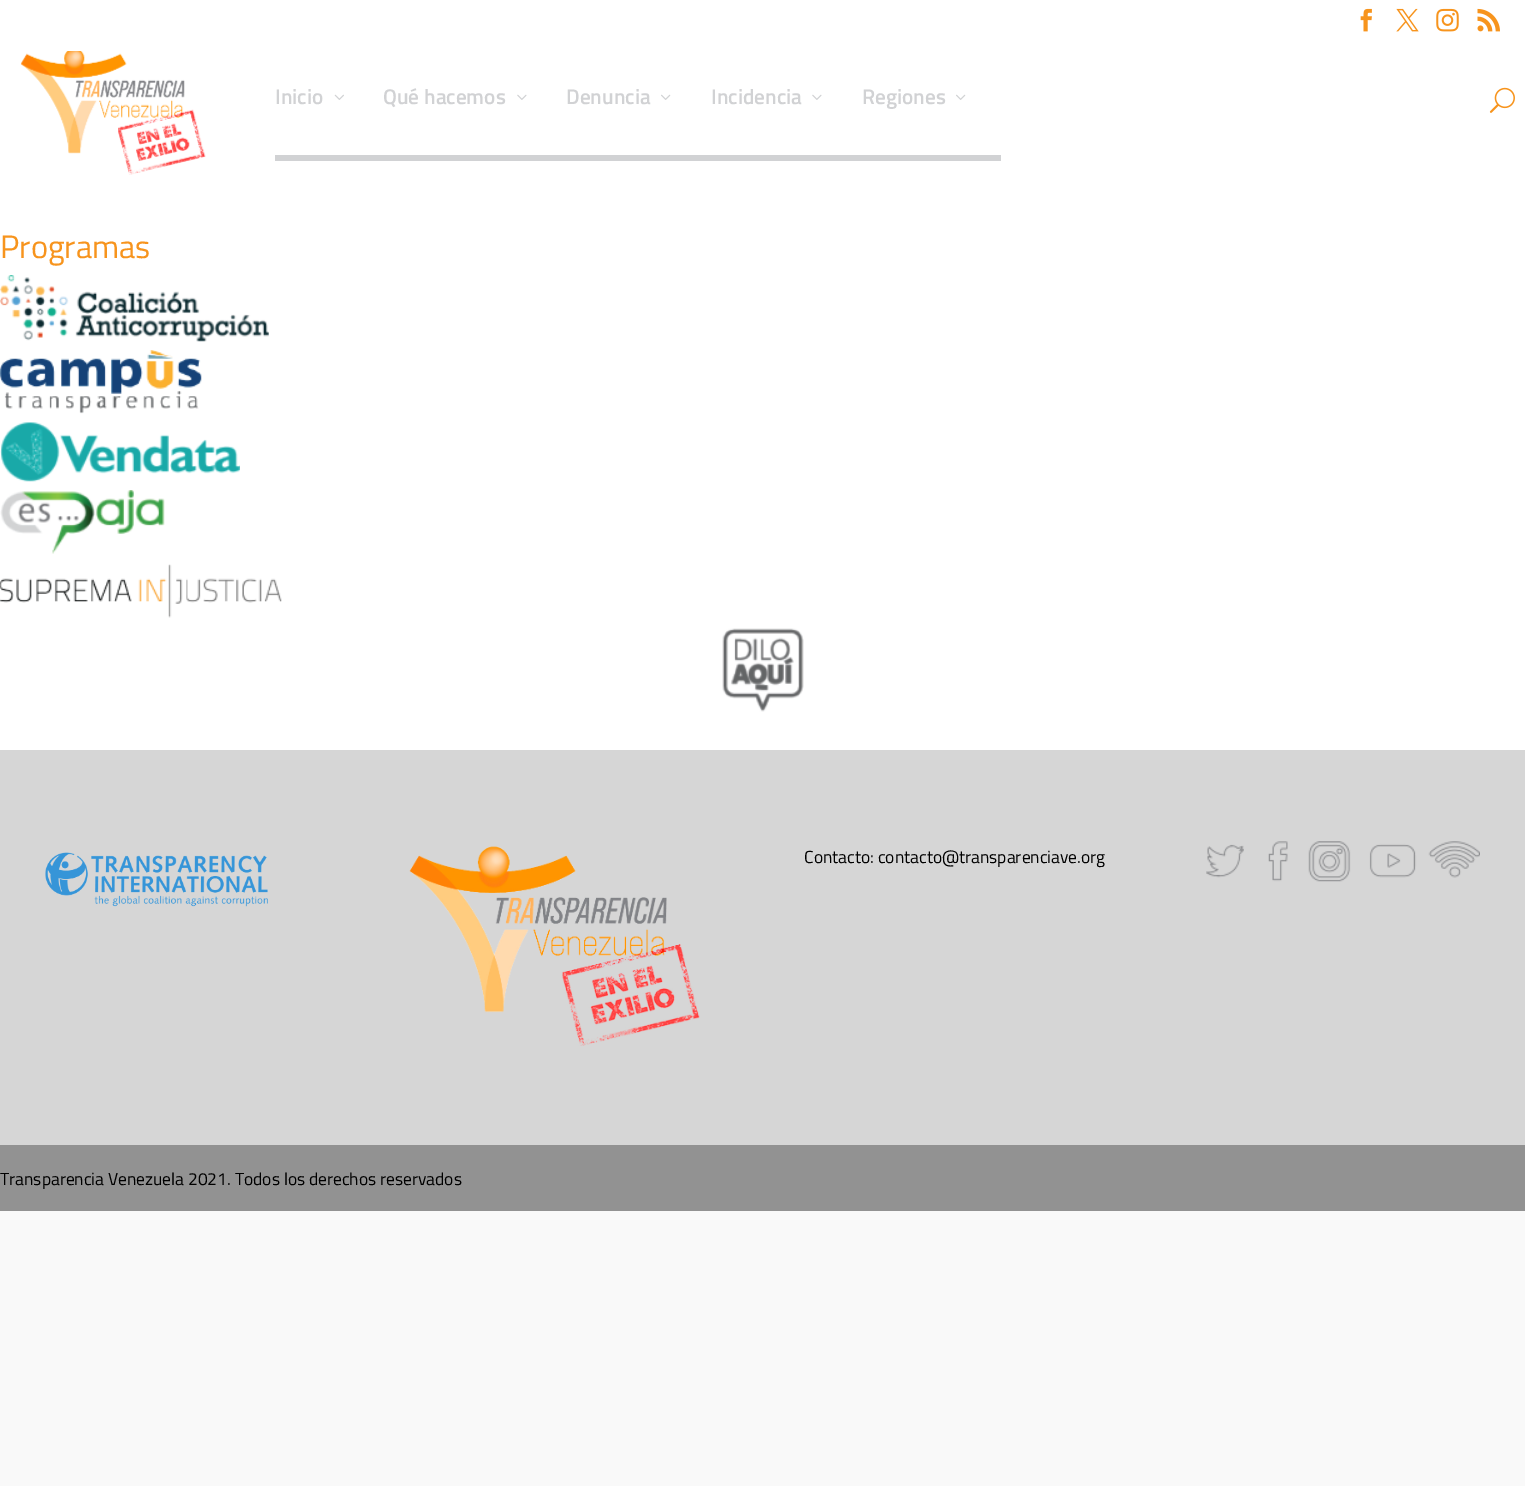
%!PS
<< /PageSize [1525 1486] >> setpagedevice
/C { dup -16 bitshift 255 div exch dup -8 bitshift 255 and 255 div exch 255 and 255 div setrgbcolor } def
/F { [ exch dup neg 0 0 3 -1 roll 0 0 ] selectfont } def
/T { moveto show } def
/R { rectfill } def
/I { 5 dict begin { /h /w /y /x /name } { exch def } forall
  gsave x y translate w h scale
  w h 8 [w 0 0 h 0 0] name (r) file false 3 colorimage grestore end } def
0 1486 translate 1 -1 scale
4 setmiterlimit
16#F9F9F9 C
0 0 1525 1486 R
16#FFFFFF C
0 0 1525 750 R
(1.rgb) 1360 8 12 24 I
(2.rgb) 1396 8 23 24 I
(3.rgb) 1436 8 23 24 I
(4.rgb) 1477 8 23 24 I
(5.rgb) 20 51 186 124 I
16#D1D2D4 C
275 155 726 6 R
/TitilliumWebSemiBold-SemiBold 21.25 F
(Inicio) 275 104 T
(6.rgb) 334 94 10 6 I
(Qué hacemos) 383 104 T
(7.rgb) 517 94 10 6 I
(Denuncia) 566 104 T
(8.rgb) 661 94 10 6 I
(Incidencia) 711 104 T
(7.rgb) 812 94 10 6 I
(Regiones) 862 104 T
(8.rgb) 956 94 10 6 I
(9.rgb) 1489 87 26 26 I
/TitilliumWeb-Regular 32.5 F
16#F7941D C
(Programas) 0 258 T
(10.rgb) 0 275 269 67 I
(11.rgb) 0 350 202 64 I
(12.rgb) 0 422 240 60 I
(13.rgb) 0 490 165 64 I
(14.rgb) 0 564 282 54 I
(15.rgb) 722 628 82 84 I
16#D6D6D6 C
0 750 1525 395 R
(16.rgb) 45 852 223 55 I
(17.rgb) 409 846 291 200 I
/TitilliumWeb-Regular 17.5 F
16#000000 C
(Contacto: contacto@transparenciave.org) 804 863 T
(18.rgb) 1206 841 274 41 I
16#929292 C
0 1145 1525 66 R
16#000000 C
(Transparencia Venezuela 2021. Todos los derechos reservados) 0 1185 T
showpage
